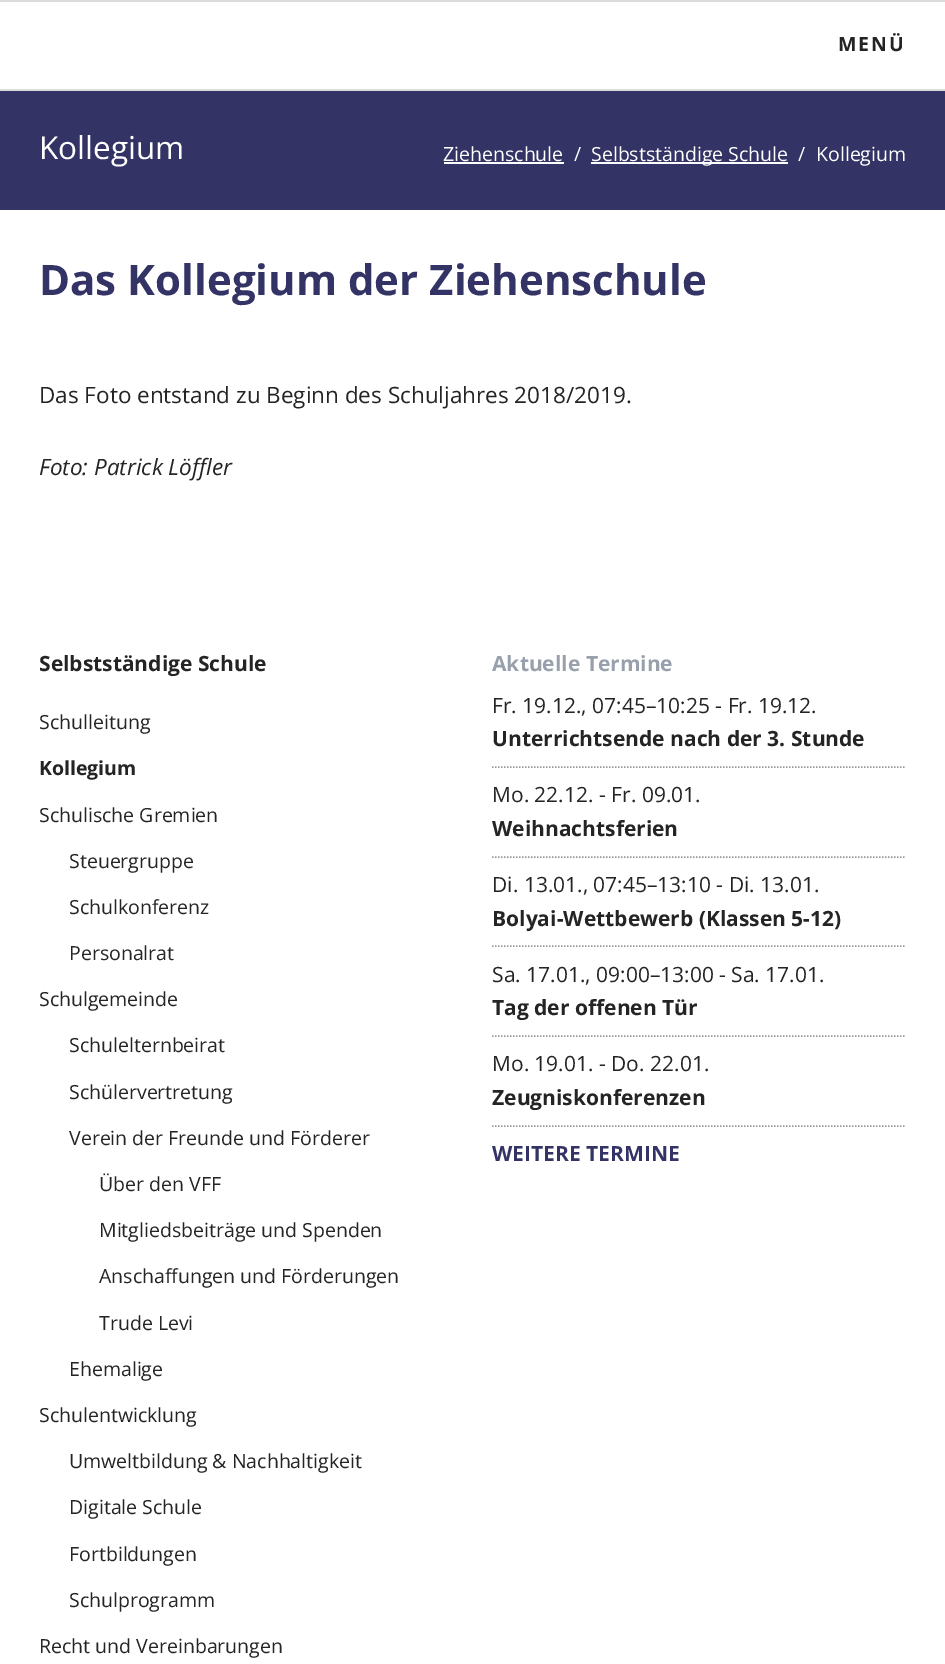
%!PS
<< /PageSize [945 1664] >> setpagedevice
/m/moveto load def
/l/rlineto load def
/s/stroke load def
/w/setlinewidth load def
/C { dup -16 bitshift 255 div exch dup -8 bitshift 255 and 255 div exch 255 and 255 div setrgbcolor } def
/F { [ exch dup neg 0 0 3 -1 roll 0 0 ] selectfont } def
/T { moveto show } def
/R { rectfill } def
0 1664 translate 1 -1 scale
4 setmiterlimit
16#FFFFFF C
0 0 945 1664 R
16#DCDCDC C
0 0 945 2 R
0 89 945 2 R
/OpenSans-Bold 19.5 F
16#242424 C
838 51 m 2 0 (MENÜ) ashow
16#333365 C
0 91 945 119 R
/OpenSans-Regular 31.5 F
16#FFFFFF C
(Kollegium) 39 159 T
/OpenSans-Regular 19.5 F
(Ziehenschule) 443 161 T
444 162 120 2 R
(/) 574 161 T
591 162 197 2 R
(Selbstständige Schule) 591 161 T
(/) 798 161 T
(Kollegium) 816 161 T
/OpenSans-Bold 42 F
16#333365 C
(Das Kollegium der Ziehenschule) 39 295 T
/OpenSans-Regular 22.5 F
16#242424 C
(Das Foto entstand zu Beginn des Schuljahres 2018/2019.) 39 403 T
/OpenSans-Italic 22.5 F
(Foto: Patrick Löffler) 39 475 T
/OpenSans-Bold 21 F
(Selbstständige Schule) 39 671 T
/OpenSans-Regular 19.5 F
(Schulleitung) 39 729 T
/OpenSans-Bold 19.5 F
(Kollegium) 39 775 T
/OpenSans-Regular 19.5 F
(Schulische Gremien) 39 822 T
(Steuergruppe) 69 868 T
(Schulkonferenz) 69 914 T
(Personalrat) 69 960 T
(Schulgemeinde) 39 1006 T
(Schulelternbeirat) 69 1052 T
(Schülervertretung) 69 1099 T
(Verein der Freunde und Förderer) 69 1145 T
(Über den VFF) 99 1191 T
(Mitgliedsbeiträge und Spenden) 99 1237 T
(Anschaffungen und Förderungen) 99 1283 T
(Trude Levi) 99 1330 T
(Ehemalige) 69 1376 T
(Schulentwicklung) 39 1422 T
(Umweltbildung & Nachhaltigkeit) 69 1468 T
(Digitale Schule) 69 1514 T
(Fortbildungen) 69 1561 T
(Schulprogramm) 69 1607 T
(Recht und Vereinbarungen) 39 1653 T
/OpenSans-Bold 21 F
16#98A0AB C
(Aktuelle Termine) 492 671 T
16#999999 C
1.5 w
[1.5 1.5] 0 setdash
492 767 m 414 0 l s
/OpenSans-Regular 21 F
16#242424 C
(Fr. 19.12., 07:45–10:25 - Fr. 19.12.) 492 713 T
/OpenSans-Bold 21 F
(Unterrichtsende nach der 3. Stunde) 492 746 T
16#999999 C
492 857 m 414 0 l s
/OpenSans-Regular 21 F
16#242424 C
(Mo. 22.12. - Fr. 09.01.) 492 802 T
/OpenSans-Bold 21 F
(Weihnachtsferien) 492 836 T
16#999999 C
492 946 m 414 0 l s
/OpenSans-Regular 21 F
16#242424 C
(Di. 13.01., 07:45–13:10 - Di. 13.01.) 492 892 T
/OpenSans-Bold 21 F
(Bolyai-Wettbewerb \(Klassen 5-12\)) 492 926 T
16#999999 C
492 1036 m 414 0 l s
/OpenSans-Regular 21 F
16#242424 C
(Sa. 17.01., 09:00–13:00 - Sa. 17.01.) 492 982 T
/OpenSans-Bold 21 F
(Tag der offenen Tür) 492 1015 T
16#999999 C
492 1126 m 414 0 l s
/OpenSans-Regular 21 F
16#242424 C
(Mo. 19.01. - Do. 22.01.) 492 1071 T
/OpenSans-Bold 21 F
(Zeugniskonferenzen) 492 1105 T
16#333365 C
(WEITERE TERMINE) 492 1161 T
showpage
